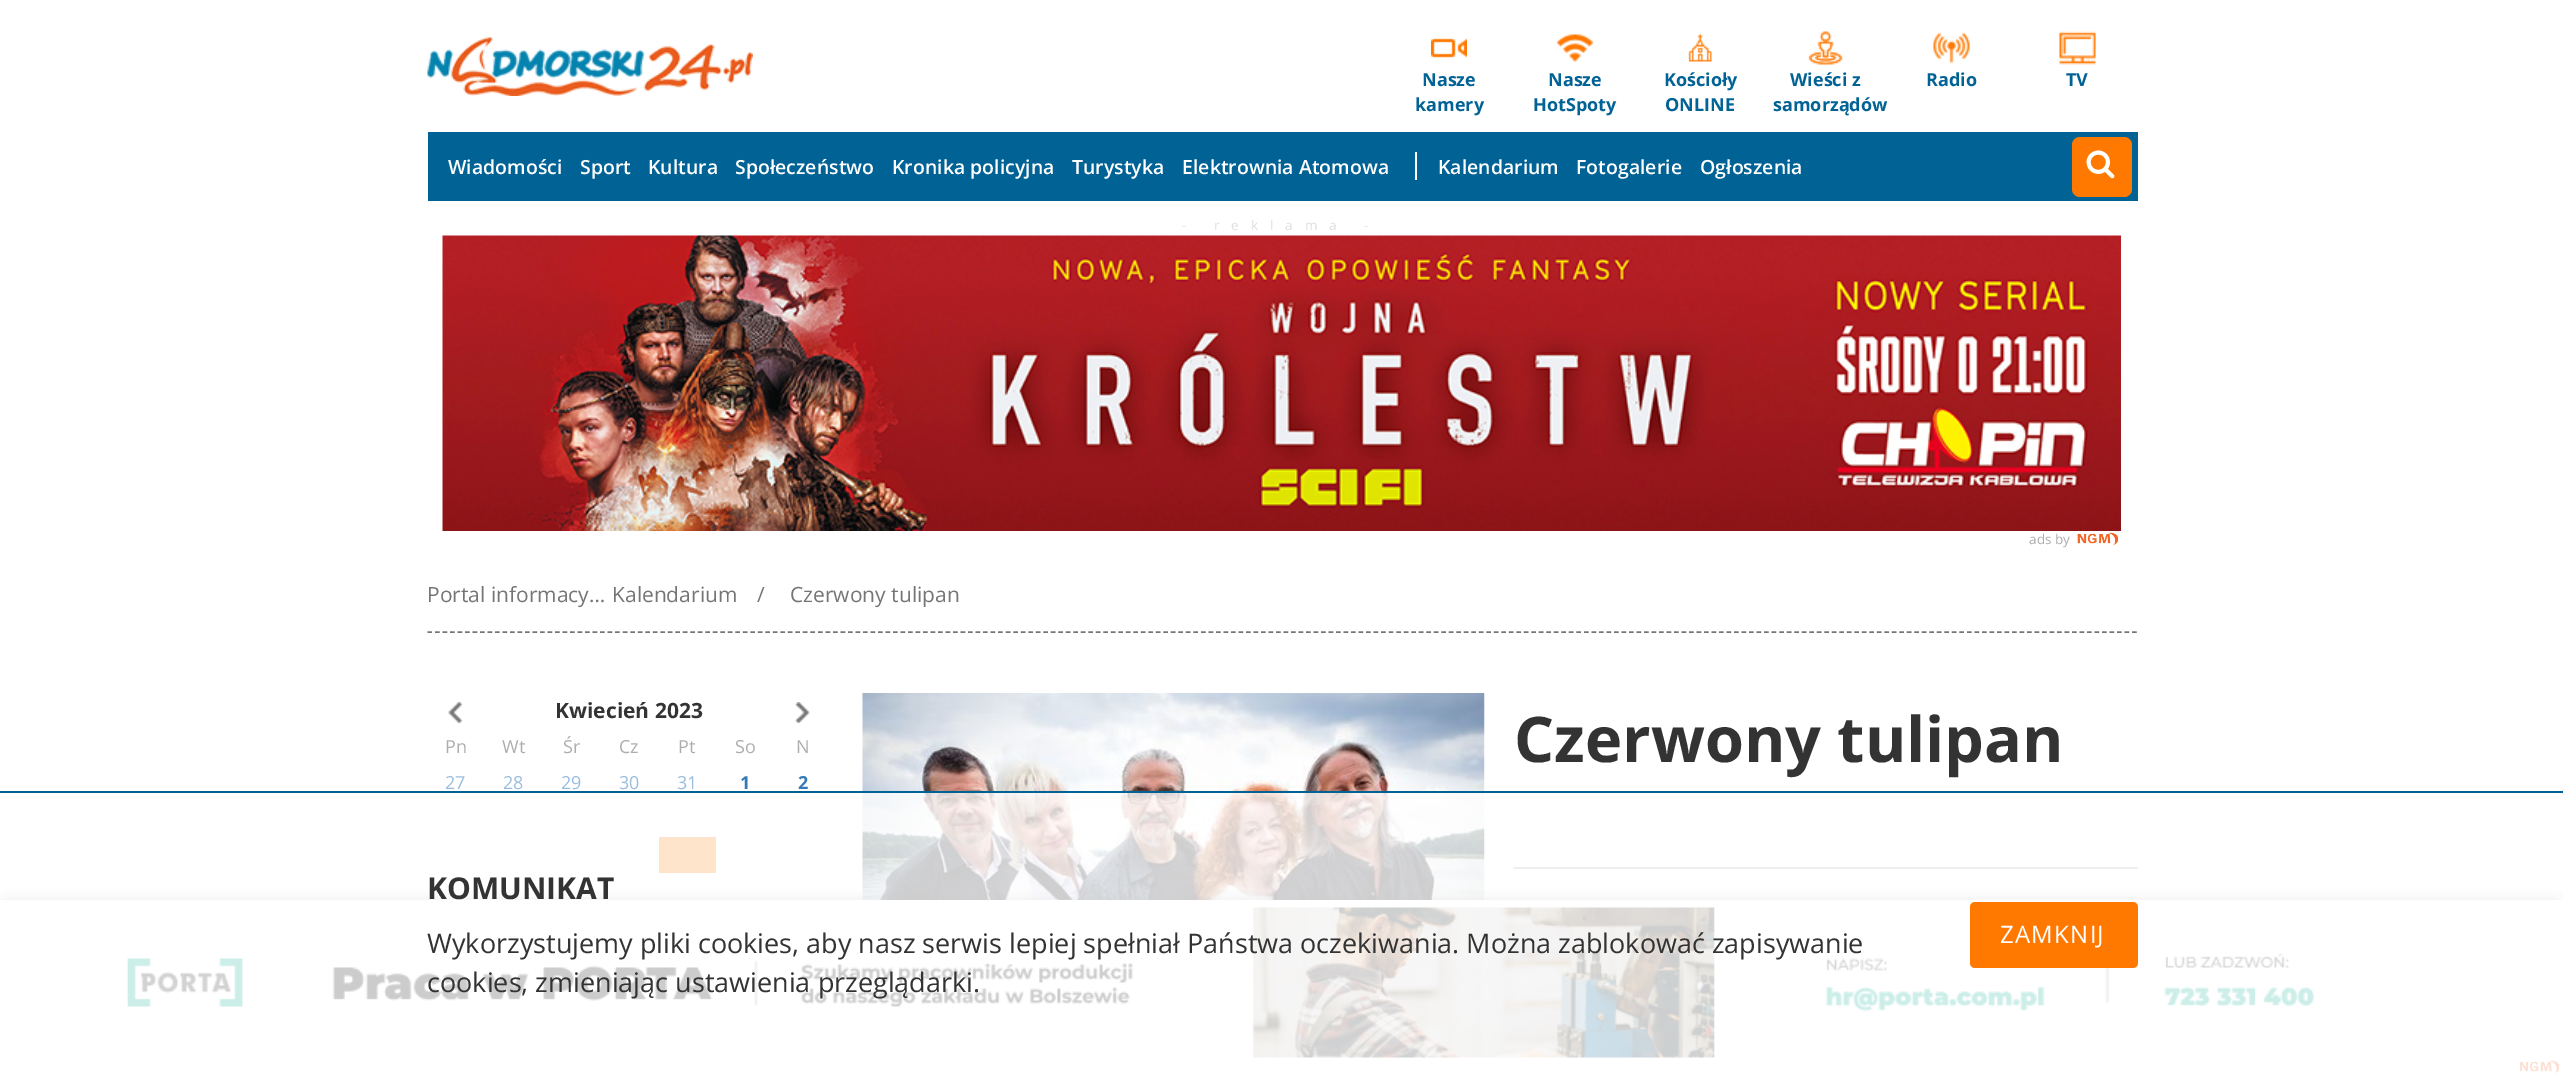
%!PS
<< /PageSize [2563 1076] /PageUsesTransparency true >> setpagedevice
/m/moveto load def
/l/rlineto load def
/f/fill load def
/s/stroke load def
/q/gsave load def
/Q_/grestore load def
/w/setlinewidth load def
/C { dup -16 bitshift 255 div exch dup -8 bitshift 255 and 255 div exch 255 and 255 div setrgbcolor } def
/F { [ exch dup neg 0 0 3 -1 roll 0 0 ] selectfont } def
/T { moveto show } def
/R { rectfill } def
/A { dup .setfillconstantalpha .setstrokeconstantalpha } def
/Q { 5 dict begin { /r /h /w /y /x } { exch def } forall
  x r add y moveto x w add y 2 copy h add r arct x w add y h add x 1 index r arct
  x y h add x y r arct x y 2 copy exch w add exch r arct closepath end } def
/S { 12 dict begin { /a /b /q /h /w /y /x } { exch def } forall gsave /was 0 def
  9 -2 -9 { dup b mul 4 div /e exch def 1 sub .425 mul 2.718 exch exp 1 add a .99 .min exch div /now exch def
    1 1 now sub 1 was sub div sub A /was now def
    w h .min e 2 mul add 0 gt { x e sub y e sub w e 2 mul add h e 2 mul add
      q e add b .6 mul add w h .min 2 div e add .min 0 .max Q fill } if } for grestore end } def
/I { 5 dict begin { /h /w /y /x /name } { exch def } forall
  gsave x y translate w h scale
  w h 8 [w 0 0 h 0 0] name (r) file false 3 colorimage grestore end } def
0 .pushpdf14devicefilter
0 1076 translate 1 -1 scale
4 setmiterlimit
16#FFFFFF C
0 0 2563 1076 R
(1.rgb) 427 37 326 59 I
(2.rgb) 1431 38 36 20 I
/OpenSans-Bold 18 F
16#006295 C
(Nasze) 1422 86 T
(kamery) 1415 111 T
(3.rgb) 1557 34 36 28 I
(Nasze) 1548 86 T
(HotSpoty) 1533 111 T
(4.rgb) 1688 34 24 28 I
(Kościoły) 1664 86 T
(ONLINE) 1665 111 T
(5.rgb) 1808 31 35 34 I
(Wieści z) 1790 86 T
(samorządów) 1773 111 T
(6.rgb) 1933 32 37 32 I
(Radio) 1926 86 T
(7.rgb) 2059 31 37 34 I
(TV) 2066 86 T
428 132 1710 69 R
16#FFFFFF C
1415 152 2 28 R
/OpenSans-SemiBold 19.5 F
(Wiadomości) 448 174 T
(Sport) 580 174 T
(Kultura) 648 174 T
(Społeczeństwo) 735 174 T
(Kronika policyjna) 892 174 T
(Turystyka) 1072 174 T
(Elektrownia Atomowa) 1182 174 T
(Kalendarium) 1438 174 T
(Fotogalerie) 1576 174 T
(Ogłoszenia) 1700 174 T
16#FF7800 C
2072 137 60 60 8 Q f
(8.rgb) 2086 150 29 29 I
/OpenSans-Regular 13.5 F
16#DEDEDE C
1182 230 m 12 0 (- reklama -) ashow
(9.rgb) 442 235 1679 296 I
16#ADADAD C
(ads by) 2029 544 T
(10.rgb) 2077 532 41 13 I
16#757575 C
1.5 w
[4.5 3.01] 0 setdash
427.5 632 m 1710 0 l s
/OpenSans-Regular 21 F
(Portal informacy…) 427 602 T
(Kalendarium) 612 602 T
(/) 757 602 T
(Czerwony tulipan) 790 602 T
(11.rgb) 448 702 14 21 I
/OpenSans-Bold 21 F
16#333333 C
(Kwiecień 2023) 555 718 T
(12.rgb) 795 702 15 21 I
/OpenSans-Regular 18 F
16#ADADAD C
(Pn) 445 753 T
(Wt) 502 753 T
(Śr) 563 753 T
(Cz) 619 753 T
(Pt) 678 753 T
(So) 735 753 T
(N) 796 753 T
16#99BDDB C
(27) 445 789 T
(28) 503 789 T
(29) 561 789 T
(30) 619 789 T
(31) 677 789 T
/OpenSans-Bold 18 F
16#337AB7 C
(1) 740 789 T
(2) 798 789 T
16#FF7800 C
659 837 57 36 R
(13.rgb) 862 693 623 207 I
/OpenSans-Bold 63 F
16#333333 C
(Czerwony tulipan) 1514 762 T
16#AAAAAA C
1514 867 624 2 R
q
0 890 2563 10 rectclip
16#000000 C
8 908 2548 162 0 9 1 S
Q_
(14.rgb) 127 907 2187 151 I
(15.rgb) 2520 1060 40 13 I
0.8 A
16#FFFFFF C
0 793 2563 280 R
1 A
16#006295 C
0 791 2563 2 R
/OpenSans-Bold 30 F
16#333333 C
(KOMUNIKAT) 427 899 T
/OpenSans-Regular 27 F
(Wykorzystujemy pliki cookies, aby nasz serwis lepiej spełniał Państwa oczekiwania. Można zablokować zapisywanie) 427 953 T
(cookies, zmieniając ustawienia przeglądarki.) 427 992 T
16#FF7800 C
1970 902 168 66 5 Q f
/OpenSans-Regular 24 F
16#FFFFFF C
2000 943 m 1.25 0 (ZAMKNIJ) ashow
.poppdf14devicefilter showpage
